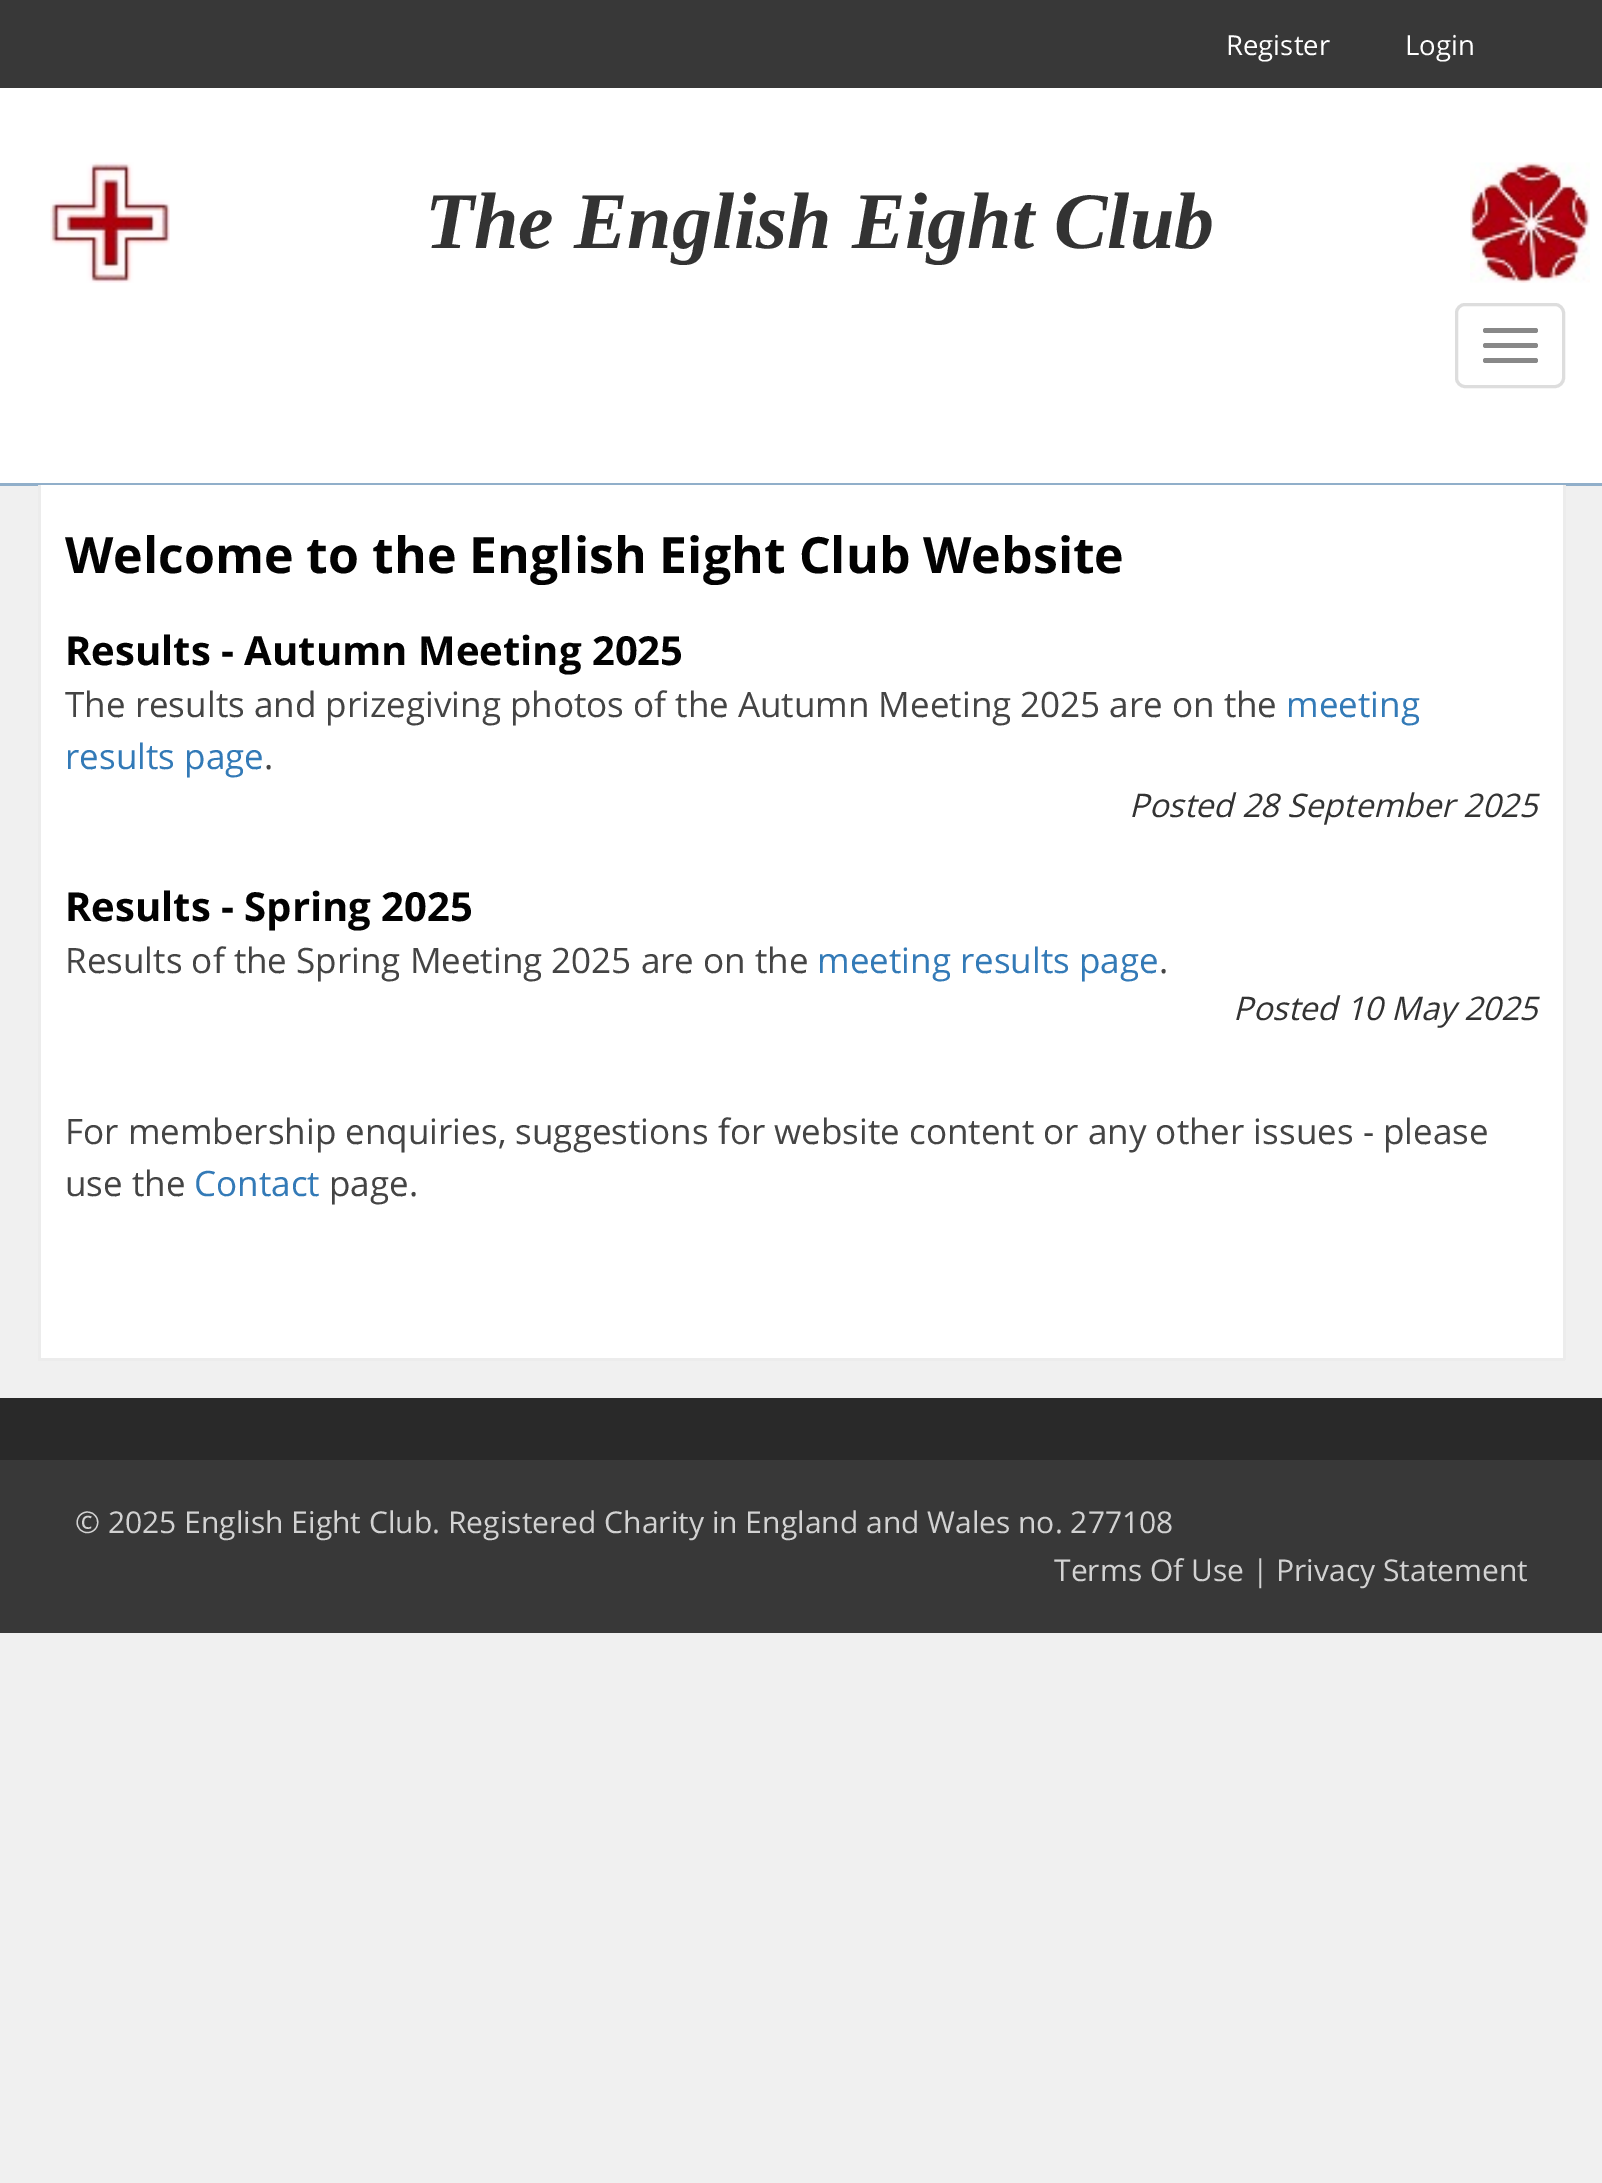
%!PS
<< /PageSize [1602 2183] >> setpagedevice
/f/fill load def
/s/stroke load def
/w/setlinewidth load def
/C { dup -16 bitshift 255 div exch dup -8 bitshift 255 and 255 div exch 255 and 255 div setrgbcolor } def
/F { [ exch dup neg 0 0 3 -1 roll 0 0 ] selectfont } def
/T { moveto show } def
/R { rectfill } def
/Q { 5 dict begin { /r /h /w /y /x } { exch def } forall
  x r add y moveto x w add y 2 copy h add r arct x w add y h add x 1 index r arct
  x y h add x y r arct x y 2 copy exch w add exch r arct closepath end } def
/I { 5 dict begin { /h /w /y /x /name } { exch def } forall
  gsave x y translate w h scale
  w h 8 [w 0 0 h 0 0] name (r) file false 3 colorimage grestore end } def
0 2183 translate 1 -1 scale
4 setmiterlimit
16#F0F0F0 C
0 0 1602 2183 R
16#383838 C
0 0 1602 88 R
/OpenSans-Regular 27.5 F
16#FFFFFF C
(Register) 1226 55 T
(Login) 1405 55 T
0 88 1602 395 R
16#91AFCA C
0 483 1602 3 R
(1.rgb) 50 162 120 121 I
/LiberationSerif-BoldItalic 80 F
16#333333 C
(The English Eight Club) 425 248 T
(2.rgb) 1470 162 120 121 I
16#DDDDDD C
3 w
1456.5 304.5 107 82 8.5 Q s
16#888888 C
1483 328 55 5 2.5 Q f
1483 343 55 5 2.5 Q f
1483 358 55 5 2.5 Q f
16#FFFFFF C
41 485 1522 873 R
16#ECECEC C
1563 485 3 875 R
38 1358 1527 3 R
38 485 3 875 R
/OpenSans-Bold 50 F
16#020202 C
(Welcome to the English Eight Club Website) 65 573 T
/OpenSans-Bold 40 F
(Results - Autumn Meeting 2025) 65 665 T
/OpenSans-Regular 35 F
16#444444 C
(The results and prizegiving photos of the Autumn Meeting 2025 are on the) 65 717 T
16#337AB7 C
(meeting) 1286 717 T
(results page) 65 769 T
16#444444 C
(.) 264 769 T
/OpenSans-Italic 32.5 F
16#333333 C
(Posted 28 September 2025) 1129 817 T
/OpenSans-Bold 40 F
16#020202 C
(Results - Spring 2025) 65 921 T
/OpenSans-Regular 35 F
16#444444 C
(Results of the Spring Meeting 2025 are on the) 65 973 T
16#337AB7 C
(meeting results page) 817 973 T
16#444444 C
(.) 1159 973 T
/OpenSans-Italic 32.5 F
16#333333 C
(Posted 10 May 2025) 1233 1020 T
/OpenSans-Regular 35 F
16#444444 C
(For membership enquiries, suggestions for website content or any other issues - please) 65 1144 T
(use the) 65 1196 T
16#337AB7 C
(Contact) 194 1196 T
16#444444 C
(page.) 329 1196 T
16#292929 C
0 1398 1602 62 R
16#383838 C
0 1460 1602 173 R
/OpenSans-Regular 30 F
16#D2D2D2 C
(© 2025 English Eight Club. Registered Charity in England and Wales no. 277108) 75 1533 T
(Terms Of Use | Privacy Statement) 1054 1581 T
showpage
